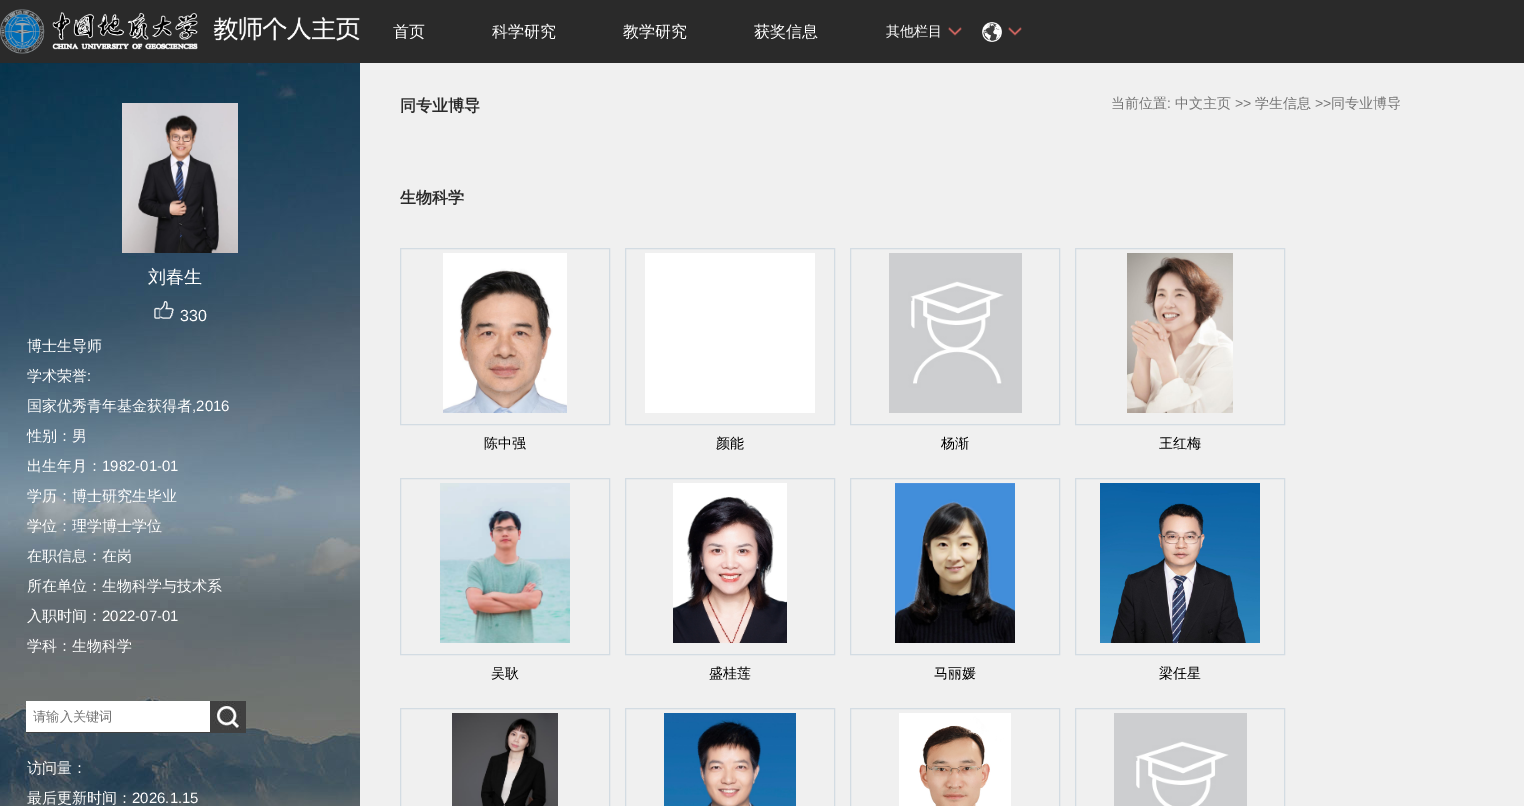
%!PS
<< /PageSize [1524 806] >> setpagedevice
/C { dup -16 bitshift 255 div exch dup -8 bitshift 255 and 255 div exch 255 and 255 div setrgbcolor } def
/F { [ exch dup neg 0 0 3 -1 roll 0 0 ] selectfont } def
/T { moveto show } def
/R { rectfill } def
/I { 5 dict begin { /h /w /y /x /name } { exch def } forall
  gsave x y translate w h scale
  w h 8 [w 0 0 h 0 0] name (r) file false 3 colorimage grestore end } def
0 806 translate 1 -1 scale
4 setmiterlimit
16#F0F0F0 C
0 0 1524 806 R
(1.rgb) 0 63 360 743 I
16#2A2A2A C
0 0 1524 63 R
(2.rgb) 0 9 360 45 I
(3.rgb) 122 103 116 150 I
/WenQuanYiZenHei-Medium 18 F
16#FFFFFF C
(刘春生) 148 283 T
(4.rgb) 154 301 20 18 I
/LiberationSans-Regular 16 F
(330) 180 321 T
/WenQuanYiZenHei-Medium 15 F
(博士生导师) 27 351 T
(学术荣誉) 27 381 T
/LiberationSans-Regular 15 F
(:) 87 381 T
/WenQuanYiZenHei-Medium 15 F
(国家优秀青年基金获得者) 27 411 T
/LiberationSans-Regular 15 F
(,2016) 192 411 T
/WenQuanYiZenHei-Medium 15 F
(性别：男) 27 441 T
(出生年月：) 27 471 T
/LiberationSans-Regular 15 F
(1982-01-01) 102 471 T
/WenQuanYiZenHei-Medium 15 F
(学历：博士研究生毕业) 27 501 T
(学位：理学博士学位) 27 531 T
(在职信息：在岗) 27 561 T
(所在单位：生物科学与技术系) 27 591 T
(入职时间：) 27 621 T
/LiberationSans-Regular 15 F
(2022-07-01) 102 621 T
/WenQuanYiZenHei-Medium 15 F
(学科：生物科学) 27 651 T
16#404040 C
26 701 220 32 R
16#FFFFFF C
26 701 184 31 R
/WenQuanYiZenHei-Medium 13.25 F
16#757575 C
(请输入关键词) 33 721 T
(5.rgb) 213 701 28 29 I
/WenQuanYiZenHei-Medium 15 F
16#FFFFFF C
(访问量：) 27 773 T
(最后更新时间：) 27 803 T
/LiberationSans-Regular 15 F
(2026.1.15) 132 803 T
/WenQuanYiZenHei-Medium 16 F
(首页) 393 37 T
(科学研究) 492 37 T
(教学研究) 623 37 T
(获奖信息) 754 37 T
(6.rgb) 948 27 14 9 I
/WenQuanYiZenHei-Medium 14 F
(其他栏目) 886 36 T
(6.rgb) 1008 27 14 9 I
(7.rgb) 982 22 20 20 I
/WenQuanYiZenHei-Bold 16 F
16#2A2A2A C
(同专业博导) 400 111 T
/WenQuanYiZenHei-Medium 14 F
16#757575 C
(当前位置) 1111 108 T
/LiberationSans-Regular 14 F
(:) 1167 108 T
/WenQuanYiZenHei-Medium 14 F
(中文主页) 1175 108 T
/LiberationSans-Regular 14 F
(>>) 1235 108 T
/WenQuanYiZenHei-Medium 14 F
(学生信息) 1255 108 T
/LiberationSans-Regular 14 F
(>>) 1315 108 T
/WenQuanYiZenHei-Medium 14 F
(同专业博导) 1331 108 T
/WenQuanYiZenHei-Bold 16 F
16#2A2A2A C
(生物科学) 400 203 T
16#D3DCE3 C
400.5 248.5 209 176 rectstroke
(8.rgb) 443 253 124 160 I
/WenQuanYiZenHei-Medium 14 F
16#000000 C
(陈中强) 484 448 T
16#D3DCE3 C
625.5 248.5 209 176 rectstroke
16#FFFFFF C
645 253 170 160 R
16#000000 C
(颜能) 716 448 T
16#D3DCE3 C
850.5 248.5 209 176 rectstroke
(9.rgb) 889 253 133 160 I
16#000000 C
(杨渐) 941 448 T
16#D3DCE3 C
1075.5 248.5 209 176 rectstroke
(10.rgb) 1127 253 106 160 I
16#000000 C
(王红梅) 1159 448 T
16#D3DCE3 C
400.5 478.5 209 176 rectstroke
(11.rgb) 440 483 130 160 I
16#000000 C
(吴耿) 491 678 T
16#D3DCE3 C
625.5 478.5 209 176 rectstroke
(12.rgb) 673 483 114 160 I
16#000000 C
(盛桂莲) 709 678 T
16#D3DCE3 C
850.5 478.5 209 176 rectstroke
(13.rgb) 895 483 120 160 I
16#000000 C
(马丽媛) 934 678 T
16#D3DCE3 C
1075.5 478.5 209 176 rectstroke
(14.rgb) 1100 483 160 160 I
16#000000 C
(梁任星) 1159 678 T
16#D3DCE3 C
400.5 708.5 209 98 rectstroke
(15.rgb) 452 713 106 93 I
625.5 708.5 209 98 rectstroke
(16.rgb) 664 713 132 93 I
850.5 708.5 209 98 rectstroke
(17.rgb) 899 713 112 93 I
1075.5 708.5 209 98 rectstroke
(18.rgb) 1114 713 133 93 I
showpage
